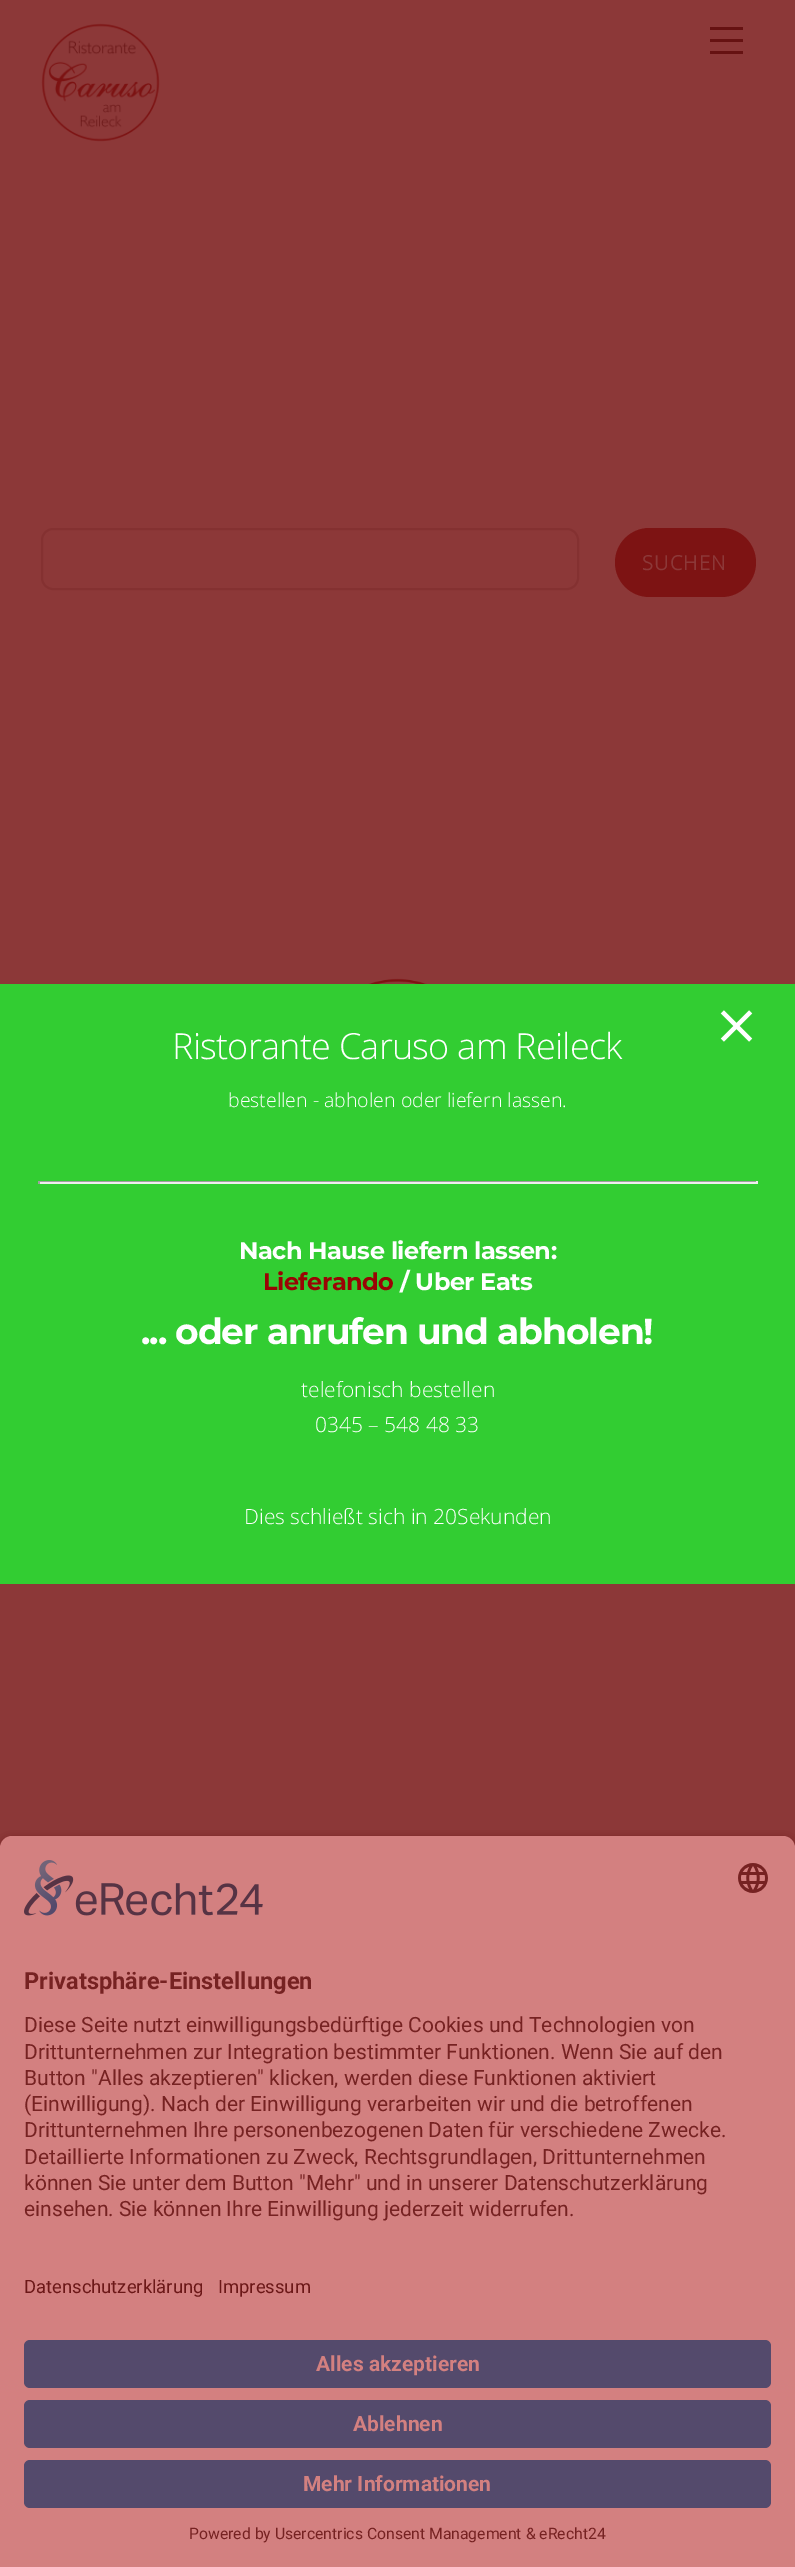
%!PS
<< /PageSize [795 2567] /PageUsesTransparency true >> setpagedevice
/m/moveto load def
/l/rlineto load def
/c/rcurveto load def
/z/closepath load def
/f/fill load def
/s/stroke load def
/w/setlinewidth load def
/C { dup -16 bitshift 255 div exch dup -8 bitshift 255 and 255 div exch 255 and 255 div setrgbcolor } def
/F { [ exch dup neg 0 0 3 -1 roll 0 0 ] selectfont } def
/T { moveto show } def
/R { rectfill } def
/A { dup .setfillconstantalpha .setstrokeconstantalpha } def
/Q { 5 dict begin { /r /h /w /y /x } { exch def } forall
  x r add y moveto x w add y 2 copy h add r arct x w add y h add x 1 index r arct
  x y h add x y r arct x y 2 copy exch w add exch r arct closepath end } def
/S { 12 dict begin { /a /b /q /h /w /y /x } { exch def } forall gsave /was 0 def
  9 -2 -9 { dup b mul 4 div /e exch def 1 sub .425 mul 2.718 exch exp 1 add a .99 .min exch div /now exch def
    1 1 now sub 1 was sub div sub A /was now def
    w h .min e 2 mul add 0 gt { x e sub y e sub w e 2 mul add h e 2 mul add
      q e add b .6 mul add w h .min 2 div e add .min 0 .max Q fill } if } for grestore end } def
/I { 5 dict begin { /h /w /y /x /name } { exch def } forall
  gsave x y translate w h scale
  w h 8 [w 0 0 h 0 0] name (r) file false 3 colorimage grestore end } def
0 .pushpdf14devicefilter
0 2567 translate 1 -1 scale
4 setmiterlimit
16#8C3838 C
0 0 795 2567 R
(1.rgb) 41 23 119 119 I
16#661212 C
710 51 33 3 R
710 27 33 3 R
710 39 33 3 R
16#843131 C
2 w
42 529 536 60 11 Q s
16#7D1313 C
615 528 141 69 34.5 Q f
/OpenSans-Bold 20 F
16#8C3838 C
642 570 m 1.25 0 (SUCHEN) ashow
(2.rgb) 368 978 59 6 I
16#32CD32 C
0 984 795 600 R
(3.rgb) 720 1010 33 32 I
/OpenSans-Light 36 F
16#FFFFFF C
172 1059 m -.75 0 (Ristorante Caruso am Reileck) ashow
/OpenSans-Light 19.5 F
(bestellen - abholen oder liefern lassen.) 228 1107 T
16#9F9F9F C
38 1181 720 1 R
16#EEEEEE C
756 1181 2 3 R
38 1182 720 2 R
16#9F9F9F C
38 1181 2 3 R
/Montserrat-Bold 24 F
16#FFFFFF C
239 1259 m -.5 0 (Nach Hause liefern lassen:) ashow
16#9A0404 C
263 1290 m -.5 0 (Lieferando) ashow
16#FFFFFF C
400 1290 m -.5 0 (/ Uber Eats) ashow
/Montserrat-Bold 36 F
141 1344 m -1.1 0 (... oder anrufen und abholen!) ashow
/OpenSans-Light 21 F
(telefonisch bestellen) 301 1397 T
(0345 – 548 48 33) 315 1432 T
(Dies schließt sich in 20Sekunden) 244 1524 T
16#540000 C
0 1841 795 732 12 5 .8 S
16#D38080 C
12 1836 m 771 0 l 6.5 0 12 5.5 12 12 c 0 405 l -795 0 l 0 -405 l 0 -6.5 5.5 -12 12 -12 c z f
(4.rgb) 24 1860 239 56 I
(5.rgb) 738 1863 30 30 I
/Roboto-Bold 23.6 F
16#762222 C
(Privatsphäre-Einstellungen) 24 1989 T
/Roboto-Regular 21 F
(Diese Seite nutzt einwilligungsbedürftige Cookies und Technologien von) 24 2032 T
(Drittunternehmen zur Integration bestimmter Funktionen. Wenn Sie auf den) 24 2059 T
(Button "Alles akzeptieren" klicken, werden diese Funktionen aktiviert) 24 2085 T
(\(Einwilligung\). Nach der Einwilligung verarbeiten wir und die betroffenen) 24 2111 T
(Drittunternehmen Ihre personenbezogenen Daten für verschiedene Zwecke.) 24 2137 T
(Detaillierte Informationen zu Zweck, Rechtsgrundlagen, Drittunternehmen) 24 2164 T
(können Sie unter dem Button "Mehr" und in unserer Datenschutzerklärung) 24 2190 T
(einsehen. Sie können Ihre Einwilligung jederzeit widerrufen.) 24 2216 T
16#D38080 C
0 2253 795 314 R
/Roboto-Regular 18.4 F
16#6C1818 C
(Datenschutzerklärung) 24 2293 T
(Impressum) 218 2293 T
16#544A6C C
24 2340 747 48 6 Q f
/Roboto-Bold 21 F
16#D38080 C
(Alles akzeptieren) 316 2371 T
16#544A6C C
24 2400 747 48 6 Q f
16#D38080 C
(Ablehnen) 353 2431 T
16#544A6C C
24 2460 747 48 6 Q f
16#D38080 C
(Mehr Informationen) 303 2491 T
/Roboto-Regular 15.75 F
16#762222 C
(Powered by Usercentrics Consent Management & eRecht24) 189 2539 T
.poppdf14devicefilter showpage
